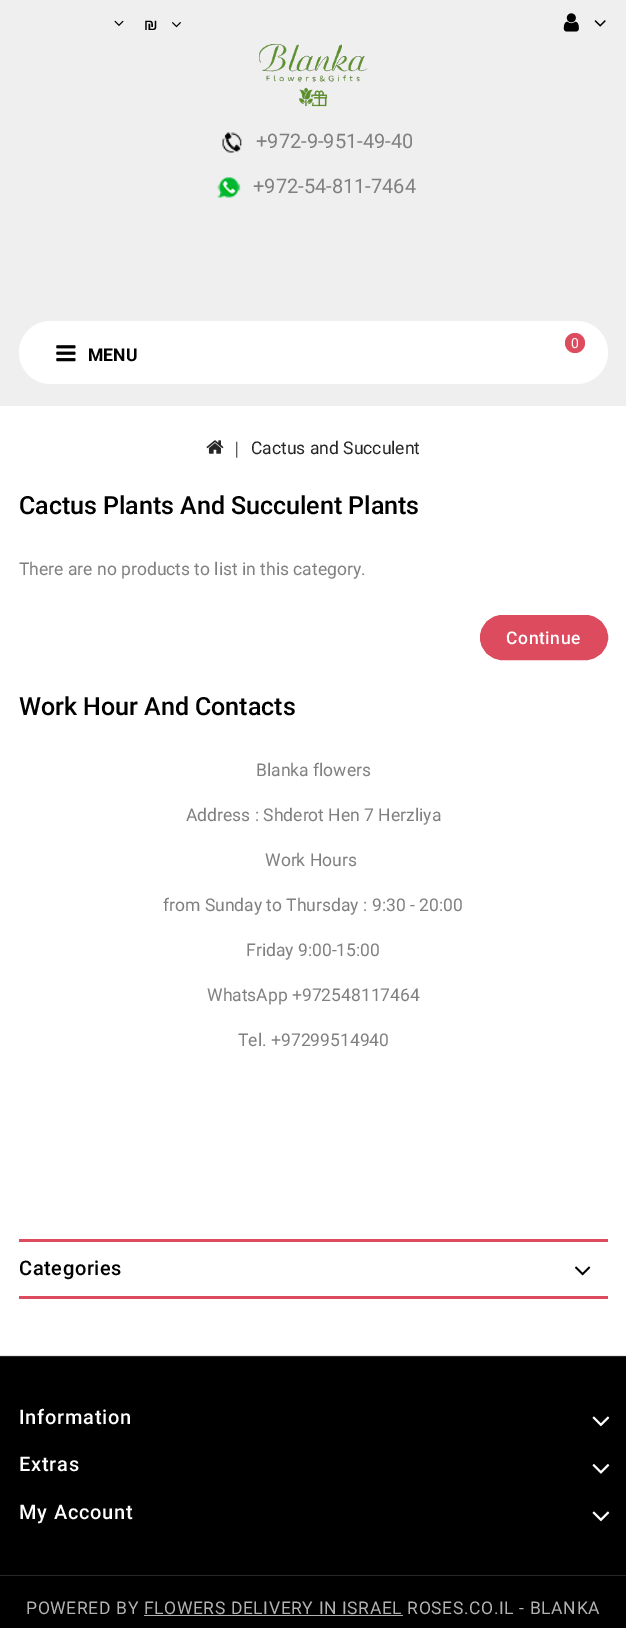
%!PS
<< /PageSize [626 1628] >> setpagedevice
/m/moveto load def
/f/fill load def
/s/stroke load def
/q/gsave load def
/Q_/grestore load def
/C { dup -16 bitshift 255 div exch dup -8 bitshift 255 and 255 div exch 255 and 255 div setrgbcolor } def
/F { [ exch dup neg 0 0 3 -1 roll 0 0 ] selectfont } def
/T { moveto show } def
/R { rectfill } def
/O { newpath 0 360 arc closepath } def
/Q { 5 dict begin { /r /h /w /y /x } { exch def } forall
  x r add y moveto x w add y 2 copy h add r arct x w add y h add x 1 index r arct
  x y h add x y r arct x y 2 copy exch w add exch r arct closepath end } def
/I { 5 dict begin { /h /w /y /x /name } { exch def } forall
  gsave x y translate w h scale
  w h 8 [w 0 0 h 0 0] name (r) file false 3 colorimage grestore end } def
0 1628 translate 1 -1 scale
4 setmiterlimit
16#FFFFFF C
0 0 626 1628 R
16#EFEFEF C
0 0 626 406 R
(1.rgb) 114 20 10 6 I
/Roboto-Regular 17.5 F
16#000000 C
144 30 m .62 0 (₪) ashow
(2.rgb) 172 22 9 6 I
(3.rgb) 563 13 16 19 I
(4.rgb) 594 20 12 7 I
(5.rgb) 258 43 110 64 I
(6.rgb) 222 132 20 21 I
/Roboto-Regular 20 F
16#808080 C
(+972-9-951-49-40) 256 148 T
(7.rgb) 217 177 24 21 I
(+972-54-811-7464) 253 193 T
16#FFFFFF C
19 321 589 63 31.5 Q f
16#DD4B5F C
575 343 10 O f
/Roboto-Regular 14 F
16#FFFFFF C
571 348 m .62 0 (0) ashow
(8.rgb) 56 345 20 17 I
/Roboto-Bold 17.5 F
16#000000 C
(MENU) 88 361 T
(9.rgb) 206 440 18 14 I
/LiberationSerif-Regular 17.5 F
16#262626 C
(|) 235 454 T
/Roboto-Regular 17.5 F
(Cactus and Succulent) 251 454 T
/Roboto-Medium 25 F
16#000000 C
(Cactus Plants And Succulent Plants) 19 514 T
/Roboto-Regular 17.5 F
16#808080 C
(There are no products to list in this category.) 19 575 T
16#DD4B5F C
480.5 615.5 127 44 22 Q q f Q_
s
/Roboto-Medium 17.5 F
16#FFFFFF C
506 644 m .62 0 (Continue) ashow
/Roboto-Medium 25 F
16#000000 C
(Work Hour And Contacts) 19 715 T
/Roboto-Regular 17.5 F
16#808080 C
(Blanka flowers) 256 776 T
(Address : Shderot Hen 7 Herzliya) 186 821 T
(Work Hours) 265 866 T
(from Sunday to Thursday : 9:30 - 20:00) 163 911 T
(Friday 9:00-15:00) 246 956 T
(WhatsApp +972548117464) 207 1001 T
(Tel. +97299514940) 238 1046 T
16#DD4B5F C
19 1239 589 3 R
19 1296 589 3 R
/Roboto-Medium 20 F
16#000000 C
19 1275 m .62 0 (Categories) ashow
(10.rgb) 575 1266 16 10 I
0 1357 626 271 R
16#E6E6E6 C
0 1355 626 1 R
16#262626 C
0 1356 626 1 R
16#FFFFFF C
19 1424 m .75 0 (Information) ashow
(11.rgb) 592 1416 18 11 I
19 1471 m .75 0 (Extras) ashow
(12.rgb) 592 1464 18 10 I
19 1519 m .75 0 (My Account) ashow
(11.rgb) 592 1511 18 11 I
16#262626 C
0 1575 626 1 R
/Roboto-Regular 17.5 F
16#B2B2B2 C
26 1614 m .62 0 (POWERED BY FLOWERS DELIVERY IN ISRAEL ROSES.CO.IL - BLANKA) ashow
144 1615 259 1 R
showpage
